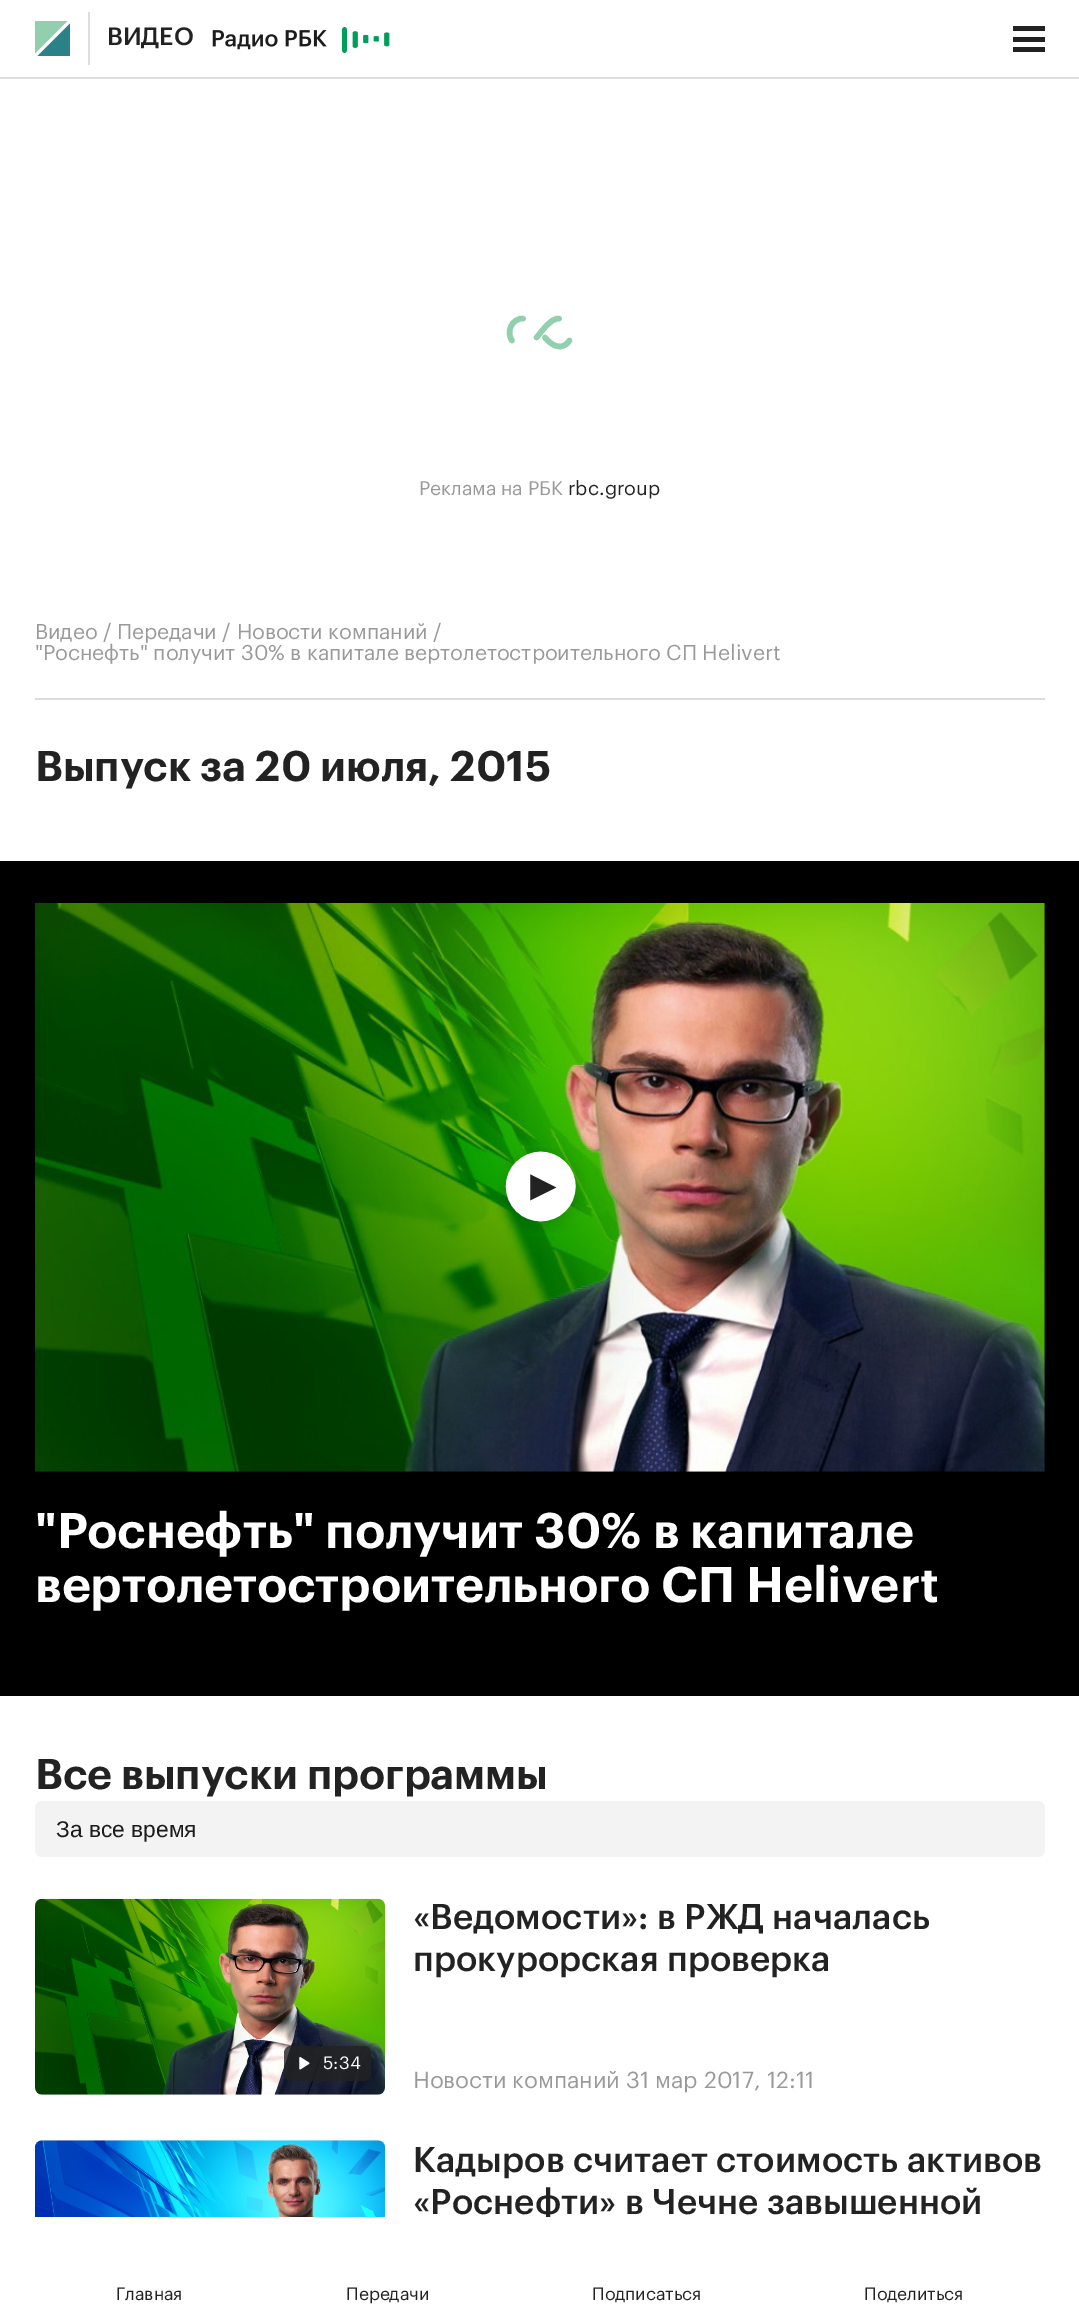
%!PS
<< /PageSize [1079 2321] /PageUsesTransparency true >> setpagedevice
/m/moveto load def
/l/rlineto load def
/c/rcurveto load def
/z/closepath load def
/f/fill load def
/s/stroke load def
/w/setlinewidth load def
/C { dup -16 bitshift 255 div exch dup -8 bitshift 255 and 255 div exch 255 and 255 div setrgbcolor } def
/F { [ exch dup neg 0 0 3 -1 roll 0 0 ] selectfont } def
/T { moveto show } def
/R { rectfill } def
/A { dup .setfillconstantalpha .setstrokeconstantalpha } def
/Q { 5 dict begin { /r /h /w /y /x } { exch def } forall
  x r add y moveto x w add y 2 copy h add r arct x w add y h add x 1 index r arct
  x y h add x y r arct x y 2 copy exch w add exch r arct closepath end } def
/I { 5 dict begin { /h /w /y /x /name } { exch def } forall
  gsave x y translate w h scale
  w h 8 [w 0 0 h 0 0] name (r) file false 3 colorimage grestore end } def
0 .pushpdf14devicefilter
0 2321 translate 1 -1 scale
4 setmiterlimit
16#FFFFFF C
0 0 1079 2321 R
16#DDDDDD C
0 77 1079 2 R
16#92CFAE C
35 21 m 0 32.5 l 32.5 -32.5 l z eofill
16#2A8288 C
37.5 56 m 32.5 0 l 0 -32.5 l z eofill
16#DDDDDD C
88 12 2 53 R
/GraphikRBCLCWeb-Medium 24.5 F
16#222222 C
(ВИДЕО) 107 45 T
(1.rgb) 212 27 178 26 I
1013 26 32 5 R
1013 37 32 5 R
1013 47 32 5 R
16#92CFAE C
5.6 w
1 setlinecap
523 318.5 m -11.5 0 -17 13.5 -11 22 c 536.5 337.5 m 5.5 -6 13 -19 22.5 -19 c 569.5 340.5 m -7.5 11 -18 5 -24.5 -3 c s
/GraphikRBCLCWeb-Regular 19.25 F
16#999999 C
(Реклама на РБК) 419 495 T
16#222222 C
(rbc.group) 568 495 T
/GraphikRBCLCWeb-Regular 21 F
16#999999 C
(Видео / Передачи / Новости компаний /) 35 639 T
("Роснефть" получит 30% в капитале вертолетостроительного СП Helivert) 35 660 T
16#DDDDDD C
35 698 1010 2 R
/GraphikRBCLCWeb-SemiBold 42 F
16#222222 C
(Выпуск за 20 июля, 2015) 35 781 T
16#000000 C
0 861 1079 835 R
(2.rgb) 35 903 1010 569 I
(3.rgb) 498 1148 87 85 I
/GraphikRBCLCWeb-SemiBold 49 F
16#FFFFFF C
("Роснефть" получит 30% в капитале) 35 1548 T
(вертолетостроительного СП Helivert) 35 1602 T
/GraphikRBCLCWeb-SemiBold 42 F
16#222222 C
(Все выпуски программы) 35 1789 T
16#F3F3F3 C
35 1801 1010 56 7 Q f
/LiberationSans-Regular 22.75 F
16#1C1C1C C
(За все время) 56 1837 T
(4.rgb) 35 1898 350 197 I
0.8 A
16#222222 C
284 2046 87 35 7 Q f
1 A
(5.rgb) 299 2057 11 13 I
/GraphikRBCLCWeb-Regular 17.5 F
16#FFFFFF C
(5:34) 323 2069 T
/GraphikRBCLCWeb-Medium 35 F
16#222222 C
(«Ведомости»: в РЖД началась) 413 1929 T
(прокурорская проверка) 413 1971 T
/GraphikRBCLCWeb-Regular 22.75 F
16#999999 C
(Новости компаний 31 мар 2017, 12:11) 413 2088 T
(6.rgb) 35 2140 350 77 I
/GraphikRBCLCWeb-Medium 35 F
16#222222 C
(Кадыров считает стоимость активов) 413 2172 T
(«Роснефти» в Чечне завышенной) 413 2214 T
16#FFFFFF C
28 2217 m 1024 0 l 15.5 0 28 12.5 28 28 c 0 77 l -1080 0 l 0 -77 l 0 -15.5 12.5 -28 28 -28 c z f
/GraphikRBCLCWeb-Regular 17.5 F
16#222222 C
(Главная) 116 2300 T
(Передачи) 346 2300 T
(Подписаться) 592 2300 T
(Поделиться) 864 2300 T
.poppdf14devicefilter showpage
